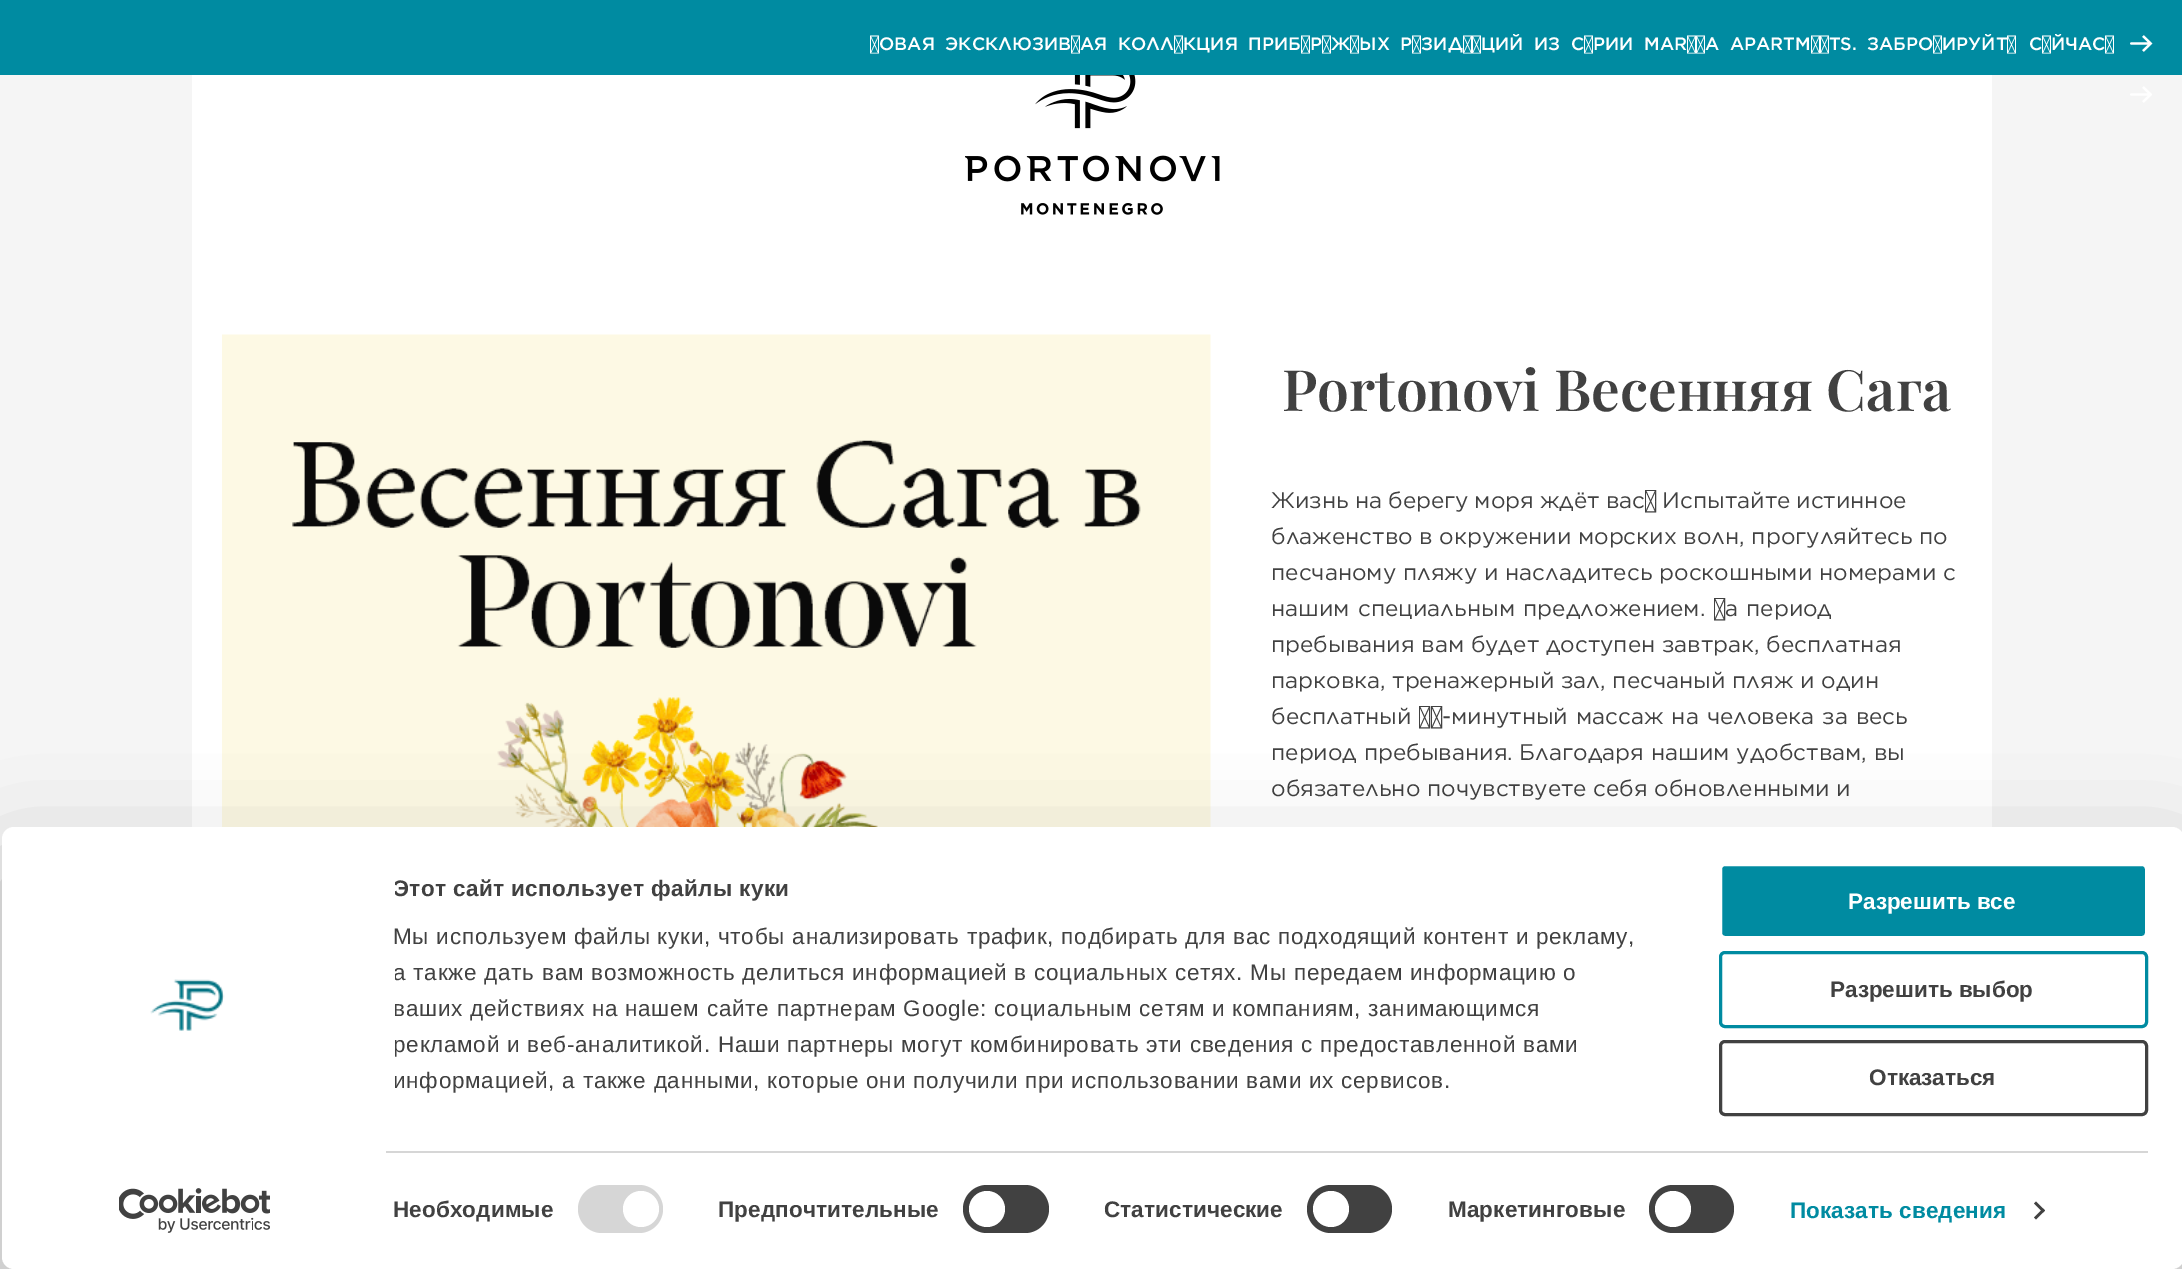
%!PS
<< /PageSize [2182 1269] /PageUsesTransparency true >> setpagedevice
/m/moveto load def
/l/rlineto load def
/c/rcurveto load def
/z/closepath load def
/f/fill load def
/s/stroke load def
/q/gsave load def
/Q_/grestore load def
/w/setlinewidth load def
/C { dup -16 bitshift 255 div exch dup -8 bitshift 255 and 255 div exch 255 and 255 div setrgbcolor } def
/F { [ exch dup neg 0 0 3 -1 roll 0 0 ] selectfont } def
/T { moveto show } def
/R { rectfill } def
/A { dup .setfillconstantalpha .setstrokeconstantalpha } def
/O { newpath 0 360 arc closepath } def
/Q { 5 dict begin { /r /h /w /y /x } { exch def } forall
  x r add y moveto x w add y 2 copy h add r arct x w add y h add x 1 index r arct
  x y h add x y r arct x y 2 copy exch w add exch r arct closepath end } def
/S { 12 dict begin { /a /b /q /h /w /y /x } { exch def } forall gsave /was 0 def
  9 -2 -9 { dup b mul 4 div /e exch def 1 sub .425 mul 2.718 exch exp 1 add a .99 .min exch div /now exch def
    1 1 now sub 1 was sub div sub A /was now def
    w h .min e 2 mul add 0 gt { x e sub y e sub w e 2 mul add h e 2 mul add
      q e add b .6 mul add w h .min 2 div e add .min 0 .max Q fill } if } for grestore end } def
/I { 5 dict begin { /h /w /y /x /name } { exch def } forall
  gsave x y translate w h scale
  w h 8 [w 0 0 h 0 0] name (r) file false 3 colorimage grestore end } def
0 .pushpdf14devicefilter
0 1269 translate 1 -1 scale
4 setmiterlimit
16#F5F5F5 C
0 0 2182 1269 R
16#008BA1 C
0 0 2182 75 R
/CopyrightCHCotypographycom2-Light 18 F
16#FFFFFF C
870 50 m 5.25 0 32 (НОВАЯ ЭКСКЛЮЗИВНАЯ КОЛЛЕКЦИЯ ПРИБЕРЕЖНЫХ РЕЗИДЕНЦИЙ ИЗ СЕРИИ MARINA APARTMENTS.) widthshow
1867 50 m 7 0 32 (ЗАБРОНИРУЙТЕ СЕЙЧАС!) widthshow
(1.rgb) 2130 35 23 17 I
(2.rgb) 2130 86 22 17 I
192 75 1800 752 R
(3.rgb) 965 75 255 140 I
(4.rgb) 222 334 989 493 I
/PlayfairDisplay-SemiBold 57 F
16#414141 C
(Portonovi Весенняя Сага) 1282 411 T
/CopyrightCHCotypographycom-Light 22.5 F
1271 508 m -.75 0 32 (Жизнь на берегу моря ждёт вас! Испытайте истинное) widthshow
(блаженство в окружении морских волн, прогуляйтесь по) 1271 544 T
(песчаному пляжу и насладитесь роскошными номерами с) 1271 580 T
1271 616 m 1.5 0 32 (нашим специальным предложением. На период) widthshow
(пребывания вам будет доступен завтрак, бесплатная) 1271 652 T
(парковка, тренажерный зал, песчаный пляж и один) 1271 688 T
1271 724 m 1.25 0 32 (бесплатный 30-минутный массаж на человека за весь) widthshow
(период пребывания. Благодаря нашим удобствам, вы) 1271 760 T
(обязательно почувствуете себя обновленными и) 1271 796 T
q
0 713 m 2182 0 l 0 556 l -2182 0 l z 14 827 m 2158 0 l 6.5 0 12 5.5 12 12 c 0 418 l 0 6.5 -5.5 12 -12 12 c -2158 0 l -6.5 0 -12 -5.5 -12 -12 c 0 -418 l 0 -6.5 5.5 -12 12 -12 c z eoclip newpath
16#000000 C
2 872 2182 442 12 52.5 .3 S
Q_
16#FFFFFF C
2 827 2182 442 12 Q f
q
395 872 1281 235 rectclip
/LiberationSans-Bold 22.5 F
16#414141 C
393 896 m .4 0 (Этот сайт использует файлы куки) ashow
Q_
/LiberationSans-Regular 22.5 F
16#414141 C
393 944 m .75 0 (Мы используем файлы куки, чтобы анализировать трафик, подбирать для вас подходящий контент и рекламу,) ashow
q
395 872 1281 235 rectclip
393 980 m .75 0 (а также дать вам возможность делиться информацией в социальных сетях. Мы передаем информацию о) ashow
393 1016 m .75 0 (ваших действиях на нашем сайте партнерам Google: социальным сетям и компаниям, занимающимся) ashow
393 1052 m .75 0 (рекламой и веб-аналитикой. Наши партнеры могут комбинировать эти сведения с предоставленной вами) ashow
393 1088 m .75 0 (информацией, а также данными, которые они получили при использовании вами их сервисов.) ashow
Q_
16#D6D6D6 C
386 1151 1762 2 R
/LiberationSans-Bold 22.5 F
16#414141 C
393 1217 m .1 0 (Необходимые) ashow
16#D6D6D6 C
578 1185 85 48 24 Q f
16#FFFFFF C
641 1209 18 O f
16#414141 C
718 1217 m .1 0 (Предпочтительные) ashow
963 1185 86 48 24 Q f
16#FFFFFF C
987 1209 18 O f
16#414141 C
1104 1217 m .1 0 (Статистические) ashow
1307 1185 85 48 24 Q f
16#FFFFFF C
1331 1209 18 O f
16#414141 C
1448 1217 m .1 0 (Маркетинговые) ashow
1649 1185 85 48 24 Q f
16#FFFFFF C
1673 1209 18 O f
16#008BA1 C
1790 1218 m .1 0 (Показать сведения) ashow
16#414141 C
2036 1201.5 m 9 9 l -2 2 l -9 -9 l z f
2043 1208.5 m 2 2 l -9 9 l -2 -2 l z f
(5.rgb) 150 979 75 52 I
(6.rgb) 119 1188 151 45 I
16#008BA1 C
1720.5 864.5 426 73 4.5 Q q f Q_
16#FFFFFF C
3 w
s
(Разрешить все) 1848 909 T
16#008BA1 C
1720.5 952.5 426 74 4.5 Q s
16#414141 C
(Разрешить выбор) 1830 997 T
1720.5 1041.5 426 73 4.5 Q s
(Отказаться) 1869 1085 T
.poppdf14devicefilter showpage
